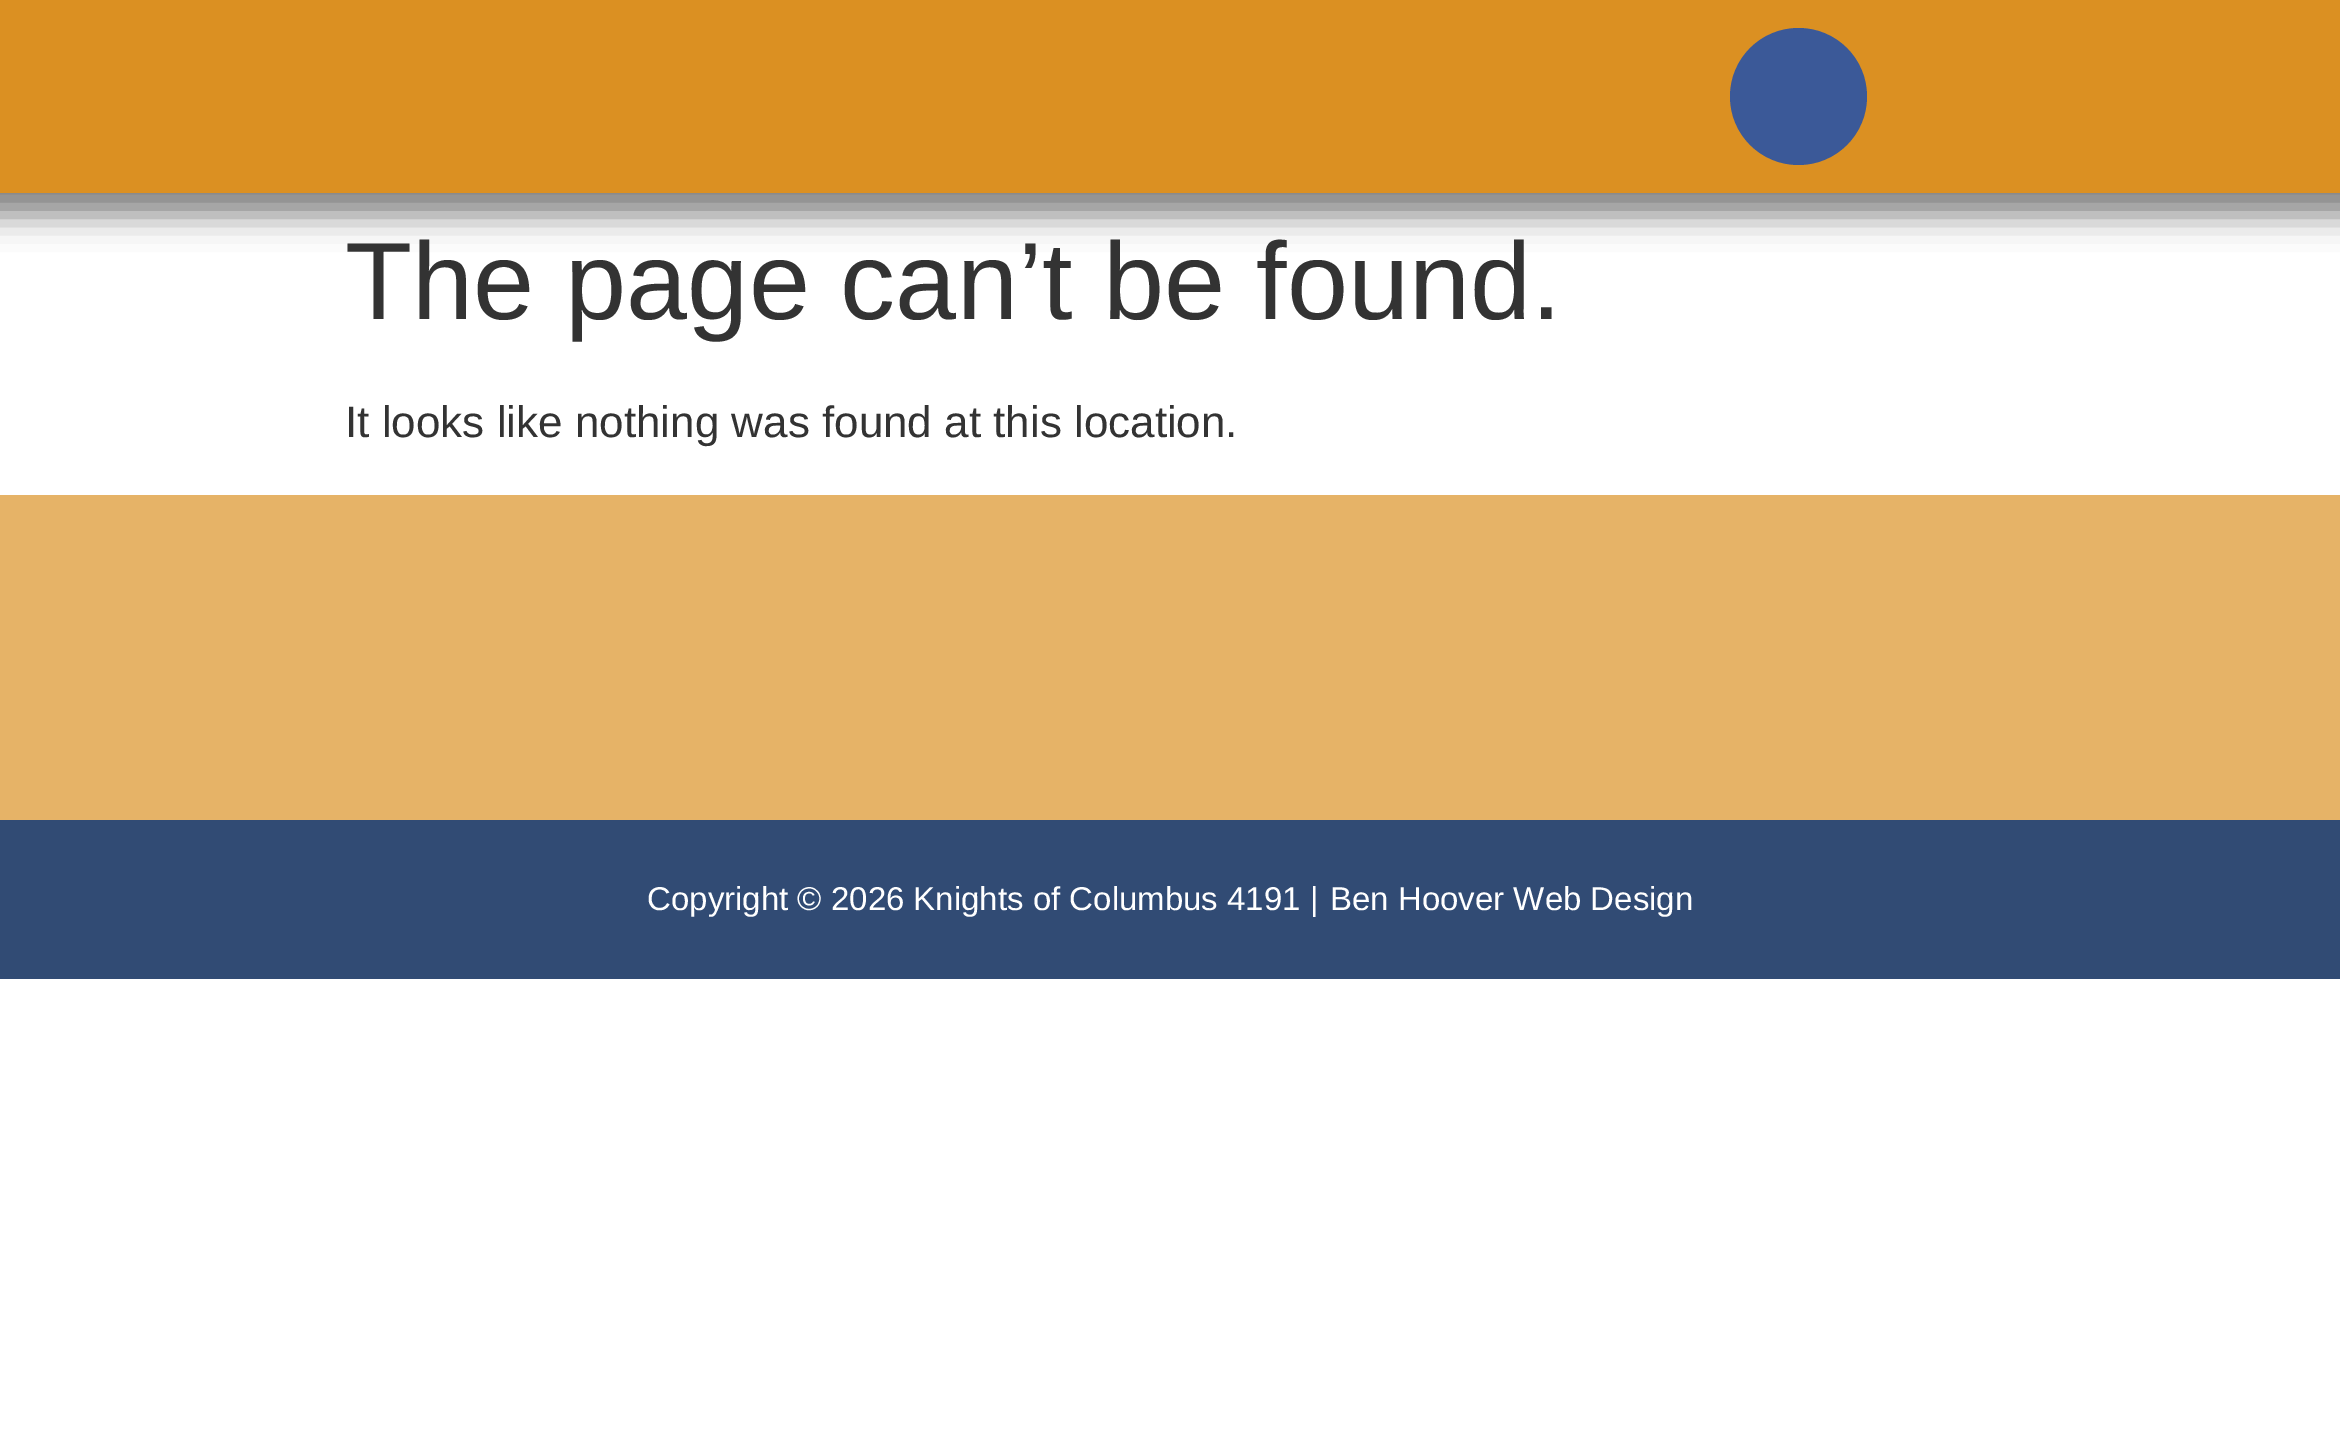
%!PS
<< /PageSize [2340 1436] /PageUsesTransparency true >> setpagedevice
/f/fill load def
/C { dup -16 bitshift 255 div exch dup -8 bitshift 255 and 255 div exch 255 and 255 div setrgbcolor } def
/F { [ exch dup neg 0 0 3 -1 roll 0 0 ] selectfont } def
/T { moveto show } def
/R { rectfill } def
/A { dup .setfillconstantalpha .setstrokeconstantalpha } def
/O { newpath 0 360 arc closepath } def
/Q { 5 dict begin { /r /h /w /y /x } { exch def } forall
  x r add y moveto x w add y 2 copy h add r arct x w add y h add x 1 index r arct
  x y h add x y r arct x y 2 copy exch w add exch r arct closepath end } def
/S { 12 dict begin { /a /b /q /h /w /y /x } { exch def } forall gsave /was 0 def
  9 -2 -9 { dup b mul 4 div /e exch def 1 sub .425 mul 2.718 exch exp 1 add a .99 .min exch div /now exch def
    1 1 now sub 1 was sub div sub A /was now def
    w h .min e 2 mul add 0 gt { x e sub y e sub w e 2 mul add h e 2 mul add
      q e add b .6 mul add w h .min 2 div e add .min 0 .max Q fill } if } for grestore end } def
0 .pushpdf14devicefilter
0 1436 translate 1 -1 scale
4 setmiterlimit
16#FFFFFF C
0 0 2340 1436 R
16#000000 C
-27 -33 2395 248 0 16.5 .5 S
16#DB9022 C
0 0 2340 193 R
16#3B5998 C
1798.5 96.5 68.5 O f
/LiberationSans-Regular 110 F
16#333333 C
(The page can’t be found.) 345 319 T
/LiberationSans-Regular 44 F
(It looks like nothing was found at this location.) 345 437 T
16#E6B367 C
0 495 2340 325 R
16#314B74 C
0 820 2340 159 R
/LiberationSans-Regular 33 F
16#FFFFFF C
(Copyright © 2026 Knights of Columbus 4191 |) 647 910 T
(Ben Hoover Web Design) 1330 910 T
.poppdf14devicefilter showpage
